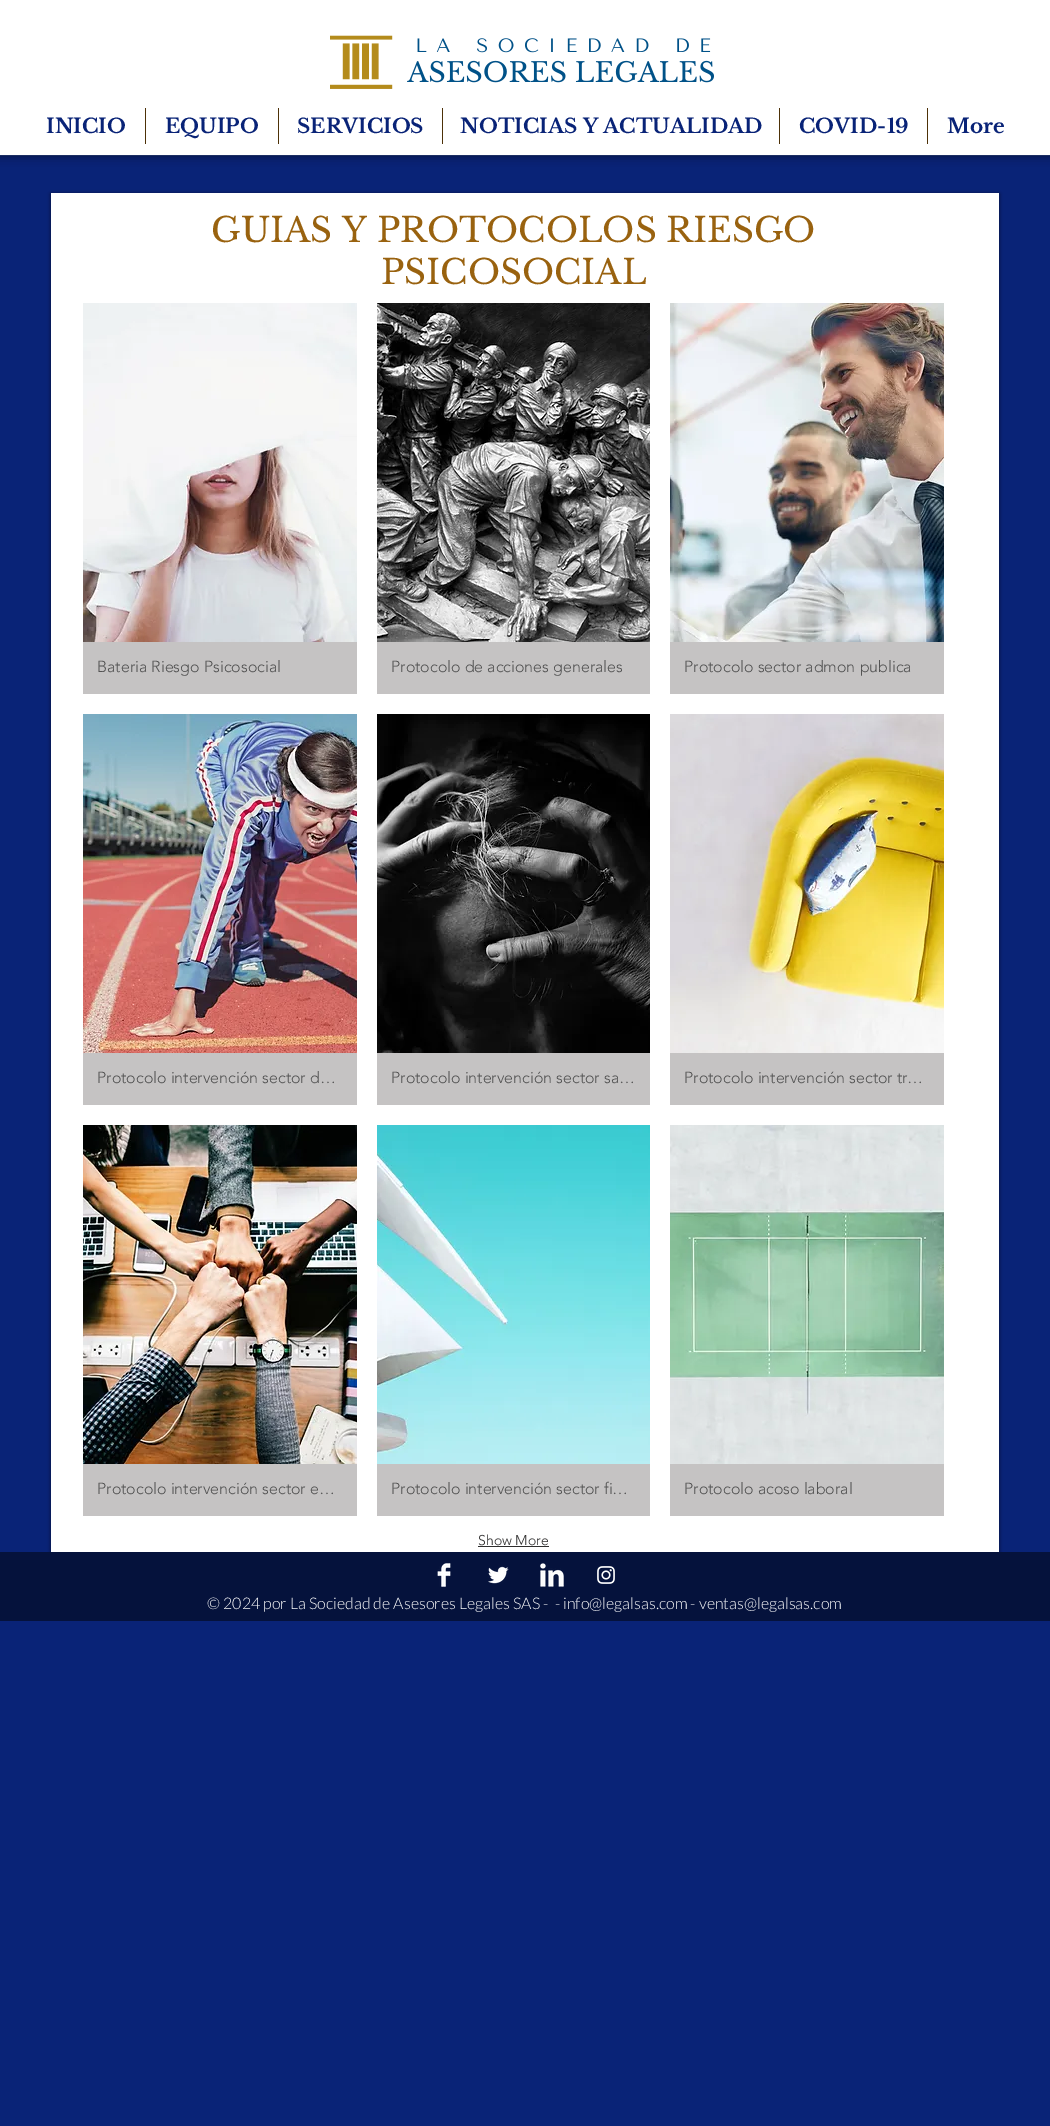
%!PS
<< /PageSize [1050 2126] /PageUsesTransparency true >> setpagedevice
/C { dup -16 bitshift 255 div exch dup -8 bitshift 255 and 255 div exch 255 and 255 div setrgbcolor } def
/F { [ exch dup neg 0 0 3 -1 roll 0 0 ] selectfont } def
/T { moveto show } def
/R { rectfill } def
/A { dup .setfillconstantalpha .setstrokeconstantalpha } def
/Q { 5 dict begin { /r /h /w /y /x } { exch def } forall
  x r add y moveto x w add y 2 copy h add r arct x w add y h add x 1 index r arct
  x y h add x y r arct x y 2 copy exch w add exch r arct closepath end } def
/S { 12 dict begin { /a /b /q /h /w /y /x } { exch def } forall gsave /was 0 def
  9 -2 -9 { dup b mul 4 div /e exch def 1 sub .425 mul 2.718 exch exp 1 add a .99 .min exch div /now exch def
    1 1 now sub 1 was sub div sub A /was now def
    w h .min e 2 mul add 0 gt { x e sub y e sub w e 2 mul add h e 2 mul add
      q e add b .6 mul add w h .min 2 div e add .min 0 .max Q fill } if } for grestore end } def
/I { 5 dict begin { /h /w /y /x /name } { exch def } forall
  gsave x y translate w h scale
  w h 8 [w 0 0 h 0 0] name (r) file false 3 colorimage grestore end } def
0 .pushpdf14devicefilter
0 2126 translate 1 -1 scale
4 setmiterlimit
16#092377 C
0 0 1050 2126 R
16#273D83 C
0 155 1050 1 R
16#000000 C
-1 -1 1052 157 0 5 .5 S
16#FFFFFF C
0 0 1050 155 R
(1.rgb) 330 35 384 54 I
/LibreBaskerville-Bold 20 F
16#092377 C
(INICIO) 46 133 T
16#4D3108 C
145 108 1 36 R
16#092377 C
(EQUIPO) 165 133 T
16#4D3108 C
278 108 1 36 R
16#092377 C
(SERVICIOS) 297 133 T
16#4D3108 C
442 108 1 36 R
16#092377 C
(NOTICIAS Y ACTUALIDAD) 460 133 T
16#4D3108 C
779 108 1 36 R
16#092377 C
(COVID-19) 799 133 T
16#4D3108 C
927 108 1 36 R
16#092377 C
(More) 947 133 T
16#000000 C
51 194 948 1359 0 2 .6 S
16#FFFFFF C
51 193 948 1359 R
/LibreBaskerville-Regular 34 F
16#99620F C
(GUIAS Y PROTOCOLOS RIESGO) 211 242 T
(PSICOSOCIAL) 381 284 T
(2.rgb) 83 303 274 339 I
16#C5C3C3 C
83 642 274 52 R
/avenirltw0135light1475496-Light 16 F
16#535353 C
(Bateria Riesgo Psicosocial) 97 672 T
(3.rgb) 377 303 273 339 I
16#C5C3C3 C
377 642 273 52 R
16#535353 C
(Protocolo de acciones generales) 391 672 T
(4.rgb) 670 303 274 339 I
16#C5C3C3 C
670 642 274 52 R
16#535353 C
(Protocolo sector admon publica) 684 672 T
(5.rgb) 83 714 274 339 I
16#C5C3C3 C
83 1053 274 52 R
16#535353 C
(Protocolo intervención sector d…) 97 1083 T
(6.rgb) 377 714 273 339 I
16#C5C3C3 C
377 1053 273 52 R
16#535353 C
(Protocolo intervención sector sa…) 391 1083 T
(7.rgb) 670 714 274 339 I
16#C5C3C3 C
670 1053 274 52 R
16#535353 C
(Protocolo intervención sector tr…) 684 1083 T
(8.rgb) 83 1125 274 339 I
16#C5C3C3 C
83 1464 274 52 R
16#535353 C
(Protocolo intervención sector e…) 97 1494 T
(9.rgb) 377 1125 273 339 I
16#C5C3C3 C
377 1464 273 52 R
16#535353 C
(Protocolo intervención sector fi…) 391 1494 T
(10.rgb) 670 1125 274 339 I
16#C5C3C3 C
670 1464 274 52 R
16#535353 C
(Protocolo acoso laboral) 684 1494 T
/avenirltw0135light1475496-Light 14 F
16#2F2E2E C
(Show More) 478 1545 T
478 1546 71 1 R
16#05123C C
0 1552 1050 69 R
(11.rgb) 437 1563 14 24 I
(12.rgb) 488 1566 21 18 I
(13.rgb) 540 1563 24 24 I
(14.rgb) 597 1566 18 18 I
/Lato-Light 16 F
16#FFFFFF C
(© 2024 por La Sociedad de Asesores Legales SAS -  - info@legalsas.com - ventas@legalsas.com) 207 1609 T
.poppdf14devicefilter showpage
